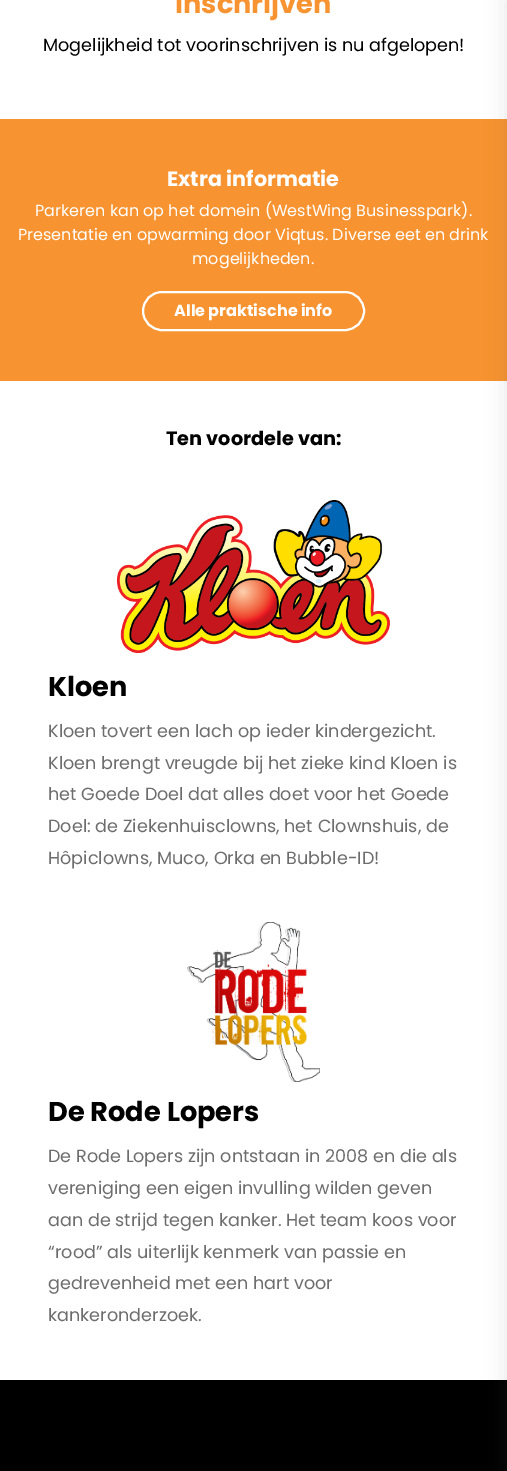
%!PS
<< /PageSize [507 1471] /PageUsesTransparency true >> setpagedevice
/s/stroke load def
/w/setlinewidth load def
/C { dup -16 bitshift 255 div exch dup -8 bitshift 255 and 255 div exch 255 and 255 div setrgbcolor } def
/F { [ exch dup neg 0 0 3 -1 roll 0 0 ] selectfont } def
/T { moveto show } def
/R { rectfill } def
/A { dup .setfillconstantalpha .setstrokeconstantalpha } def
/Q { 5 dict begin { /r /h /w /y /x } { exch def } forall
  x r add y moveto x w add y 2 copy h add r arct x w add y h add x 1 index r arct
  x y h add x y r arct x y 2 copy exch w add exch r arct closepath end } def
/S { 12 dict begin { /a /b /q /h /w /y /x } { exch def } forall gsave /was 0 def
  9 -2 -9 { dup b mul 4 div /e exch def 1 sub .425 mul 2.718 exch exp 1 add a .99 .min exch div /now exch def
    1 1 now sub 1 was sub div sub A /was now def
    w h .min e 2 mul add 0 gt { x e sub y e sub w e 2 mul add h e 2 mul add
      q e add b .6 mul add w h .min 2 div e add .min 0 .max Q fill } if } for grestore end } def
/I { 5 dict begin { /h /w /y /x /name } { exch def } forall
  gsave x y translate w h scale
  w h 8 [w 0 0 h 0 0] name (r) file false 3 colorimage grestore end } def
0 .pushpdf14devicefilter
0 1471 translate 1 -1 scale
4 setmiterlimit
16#FFFFFF C
0 0 507 1471 R
/Poppins-Bold 27.25 F
16#F79330 C
(Inschrijven) 175 13 T
/Poppins-Regular 17.6 F
16#000000 C
(Mogelijkheid tot voorinschrijven is nu afgelopen!) 43 51 T
16#F79330 C
0 119 507 262 R
16#000000 C
0 1380 507 91 R
16#525252 C
507 0 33 1471 0 11 .15 S
/Poppins-Bold 20.75 F
16#FFFFFF C
(Extra informatie) 167 186 T
/Poppins-Regular 16 F
(Parkeren kan op het domein \(WestWing Businesspark\).) 35 216 T
(Presentatie en opwarming door Viqtus. Diverse eet en drink) 18 240 T
(mogelijkheden.) 192 264 T
2 w
143 292 221 38 19 Q s
/Poppins-Bold 16 F
(Alle praktische info) 174 316 T
/Poppins-Bold 19.25 F
16#000000 C
(Ten voordele van:) 166 445 T
(1.rgb) 117 500 273 153 I
/Poppins-Bold 27.25 F
(Kloen) 48 696 T
/Poppins-Regular 17.6 F
16#6D6D6D C
(Kloen tovert een lach op ieder kindergezicht.) 48 737 T
(Kloen brengt vreugde bij het zieke kind Kloen is) 48 769 T
(het Goede Doel dat alles doet voor het Goede) 48 800 T
(Doel: de Ziekenhuisclowns, het Clownshuis, de) 48 832 T
(Hôpiclowns, Muco, Orka en Bubble-ID!) 48 864 T
(2.rgb) 187 922 133 160 I
/Poppins-Bold 27.25 F
16#000000 C
(De Rode Lopers) 48 1121 T
/Poppins-Regular 17.6 F
16#6D6D6D C
(De Rode Lopers zijn ontstaan in 2008 en die als) 48 1162 T
(vereniging een eigen invulling wilden geven) 48 1194 T
(aan de strijd tegen kanker. Het team koos voor) 48 1226 T
(“rood” als uiterlijk kenmerk van passie en) 48 1258 T
(gedrevenheid met een hart voor) 48 1289 T
(kankeronderzoek.) 48 1321 T
.poppdf14devicefilter showpage
